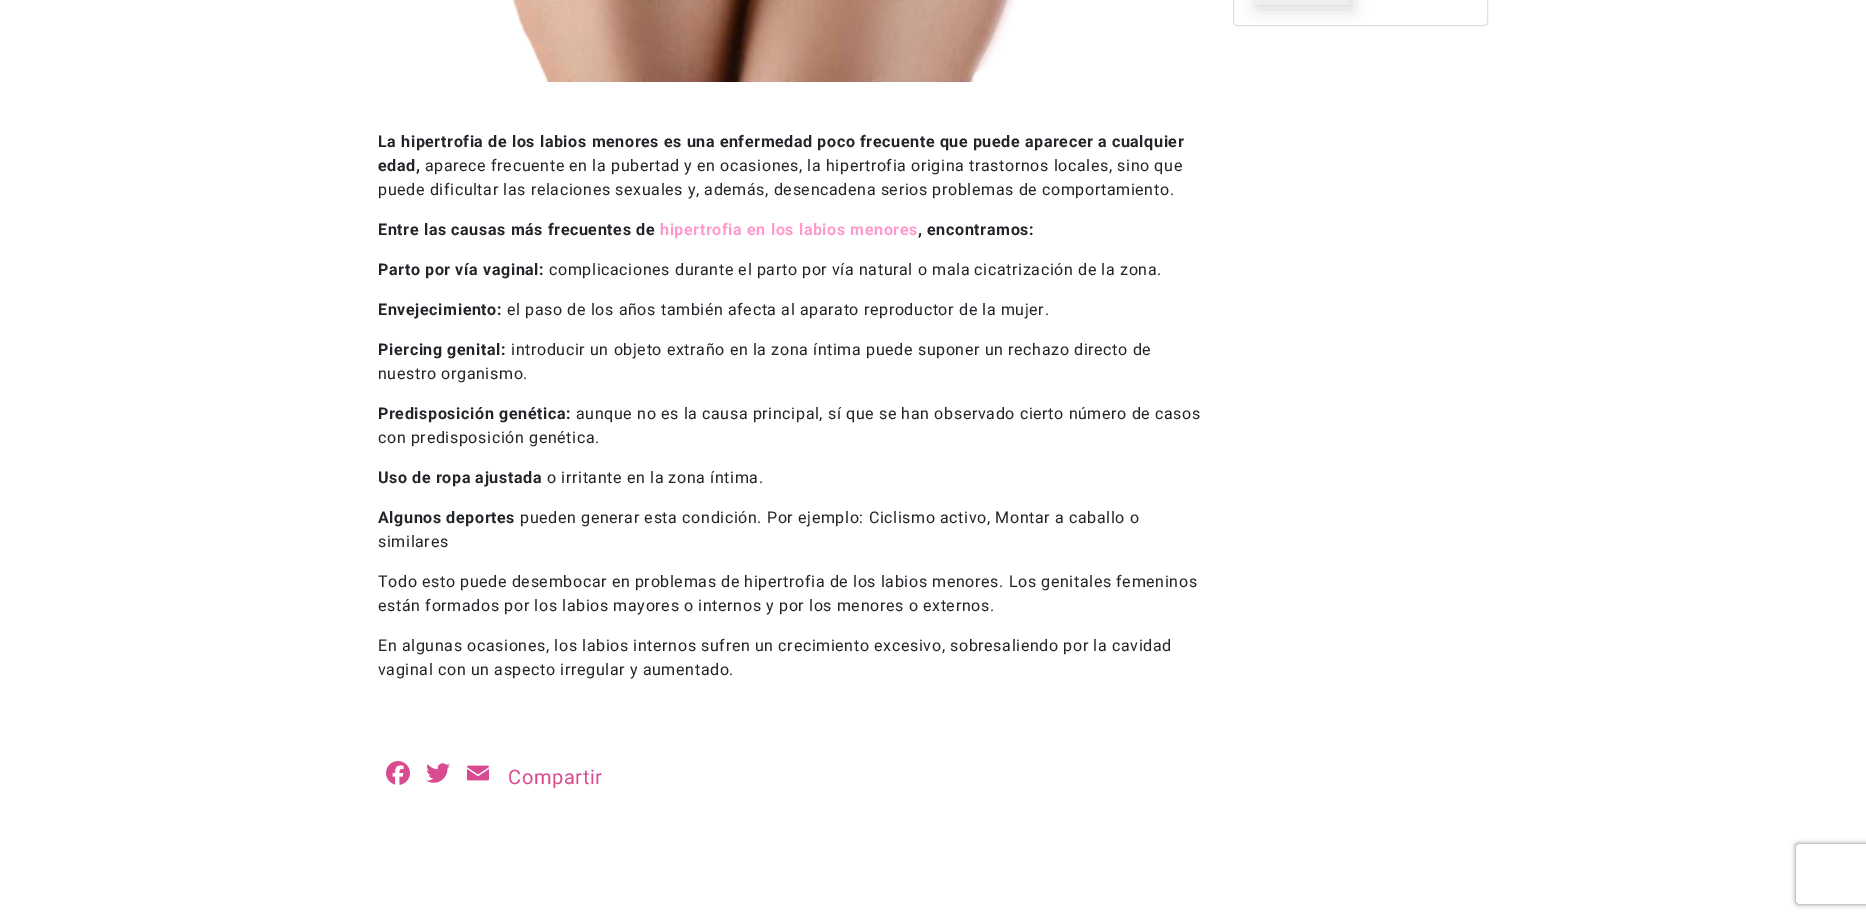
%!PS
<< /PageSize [1866 918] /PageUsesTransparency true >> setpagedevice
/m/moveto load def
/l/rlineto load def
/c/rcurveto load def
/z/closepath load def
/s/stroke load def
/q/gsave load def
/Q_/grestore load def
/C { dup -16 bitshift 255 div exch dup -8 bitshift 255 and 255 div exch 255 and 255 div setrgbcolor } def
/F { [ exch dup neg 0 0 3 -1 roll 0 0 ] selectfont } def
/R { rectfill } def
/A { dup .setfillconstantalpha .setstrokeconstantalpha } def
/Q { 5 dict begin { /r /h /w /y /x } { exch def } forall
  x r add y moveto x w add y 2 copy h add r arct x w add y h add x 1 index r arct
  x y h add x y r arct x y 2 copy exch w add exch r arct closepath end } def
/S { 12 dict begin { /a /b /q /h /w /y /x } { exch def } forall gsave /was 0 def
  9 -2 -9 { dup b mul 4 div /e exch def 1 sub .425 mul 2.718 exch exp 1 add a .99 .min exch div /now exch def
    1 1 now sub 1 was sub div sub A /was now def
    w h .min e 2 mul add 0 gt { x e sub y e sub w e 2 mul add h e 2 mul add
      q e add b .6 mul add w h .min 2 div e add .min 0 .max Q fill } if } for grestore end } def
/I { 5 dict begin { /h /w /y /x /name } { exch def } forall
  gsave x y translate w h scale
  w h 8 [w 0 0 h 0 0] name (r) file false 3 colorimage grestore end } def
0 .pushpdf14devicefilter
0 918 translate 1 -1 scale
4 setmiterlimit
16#FFFFFF C
0 0 1866 918 R
16#DFDFDF C
1233.5 -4.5 254 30 3.5 Q s
16#000000 C
1257 -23 95 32 0 8.5 .15 S
16#EFEFEF C
1254 0 95 5 R
(1.rgb) 512 0 503 82 I
/Roboto-Bold 16 F
16#212529 C
378 147 m .64 0 (La hipertrofia de los labios menores es una enfermedad poco frecuente que puede aparecer a cualquier) ashow
378 171 m .64 0 (edad,) ashow
/Roboto-Regular 16 F
425 171 m .64 0 (aparece frecuente en la pubertad y en ocasiones, la hipertrofia origina trastornos locales, sino que) ashow
378 195 m .64 0 (puede dificultar las relaciones sexuales y, además, desencadena serios problemas de comportamiento.) ashow
/Roboto-Bold 16 F
378 235 m .64 0 (Entre las causas más frecuentes de) ashow
16#FF99CC C
660 235 m .64 0 (hipertrofia en los labios menores) ashow
16#212529 C
918 235 m .64 0 (, encontramos:) ashow
378 275 m .64 0 (Parto por vía vaginal:) ashow
/Roboto-Regular 16 F
549 275 m .64 0 (complicaciones durante el parto por vía natural o mala cicatrización de la zona.) ashow
/Roboto-Bold 16 F
378 315 m .64 0 (Envejecimiento:) ashow
/Roboto-Regular 16 F
507 315 m .64 0 (el paso de los años también afecta al aparato reproductor de la mujer.) ashow
/Roboto-Bold 16 F
378 355 m .64 0 (Piercing genital:) ashow
/Roboto-Regular 16 F
511 355 m .64 0 (introducir un objeto extraño en la zona íntima puede suponer un rechazo directo de) ashow
378 379 m .64 0 (nuestro organismo.) ashow
/Roboto-Bold 16 F
378 419 m .64 0 (Predisposición genética:) ashow
/Roboto-Regular 16 F
576 419 m .64 0 (aunque no es la causa principal, sí que se han observado cierto número de casos) ashow
378 443 m .64 0 (con predisposición genética.) ashow
/Roboto-Bold 16 F
378 483 m .64 0 (Uso de ropa ajustada) ashow
/Roboto-Regular 16 F
547 483 m .64 0 (o irritante en la zona íntima.) ashow
/Roboto-Bold 16 F
378 523 m .64 0 (Algunos deportes) ashow
/Roboto-Regular 16 F
520 523 m .64 0 (pueden generar esta condición. Por ejemplo: Ciclismo activo, Montar a caballo o) ashow
378 547 m .64 0 (similares) ashow
378 587 m .64 0 (Todo esto puede desembocar en problemas de hipertrofia de los labios menores. Los genitales femeninos) ashow
378 611 m .64 0 (están formados por los labios mayores o internos y por los menores o externos.) ashow
378 651 m .64 0 (En algunas ocasiones, los labios internos sufren un crecimiento excesivo, sobresaliendo por la cavidad) ashow
378 675 m .64 0 (vaginal con un aspecto irregular y aumentado.) ashow
(2.rgb) 386 761 24 24 I
(3.rgb) 426 763 24 20 I
(4.rgb) 467 765 22 16 I
/Roboto-Regular 20 F
16#D94B90 C
508 784 m .64 0 (Compartir) ashow
q
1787 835 m 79 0 l 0 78 l -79 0 l z 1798 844 m 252 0 l 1 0 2 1 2 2 c 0 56 l 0 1 -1 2 -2 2 c -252 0 l -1 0 -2 -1 -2 -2 c 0 -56 l 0 -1 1 -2 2 -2 c z eoclip newpath
16#808080 C
1796 844 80 60 2 2.5 1 S
Q_
.poppdf14devicefilter showpage
